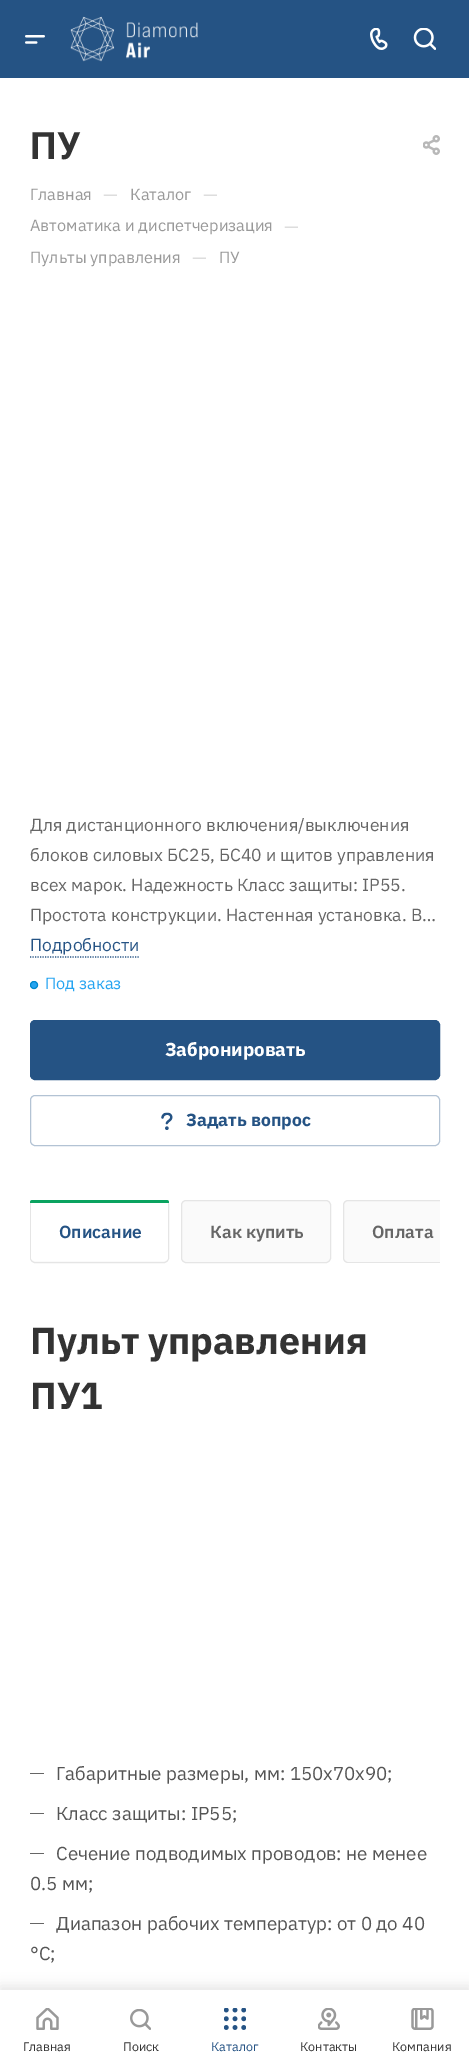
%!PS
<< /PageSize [469 2059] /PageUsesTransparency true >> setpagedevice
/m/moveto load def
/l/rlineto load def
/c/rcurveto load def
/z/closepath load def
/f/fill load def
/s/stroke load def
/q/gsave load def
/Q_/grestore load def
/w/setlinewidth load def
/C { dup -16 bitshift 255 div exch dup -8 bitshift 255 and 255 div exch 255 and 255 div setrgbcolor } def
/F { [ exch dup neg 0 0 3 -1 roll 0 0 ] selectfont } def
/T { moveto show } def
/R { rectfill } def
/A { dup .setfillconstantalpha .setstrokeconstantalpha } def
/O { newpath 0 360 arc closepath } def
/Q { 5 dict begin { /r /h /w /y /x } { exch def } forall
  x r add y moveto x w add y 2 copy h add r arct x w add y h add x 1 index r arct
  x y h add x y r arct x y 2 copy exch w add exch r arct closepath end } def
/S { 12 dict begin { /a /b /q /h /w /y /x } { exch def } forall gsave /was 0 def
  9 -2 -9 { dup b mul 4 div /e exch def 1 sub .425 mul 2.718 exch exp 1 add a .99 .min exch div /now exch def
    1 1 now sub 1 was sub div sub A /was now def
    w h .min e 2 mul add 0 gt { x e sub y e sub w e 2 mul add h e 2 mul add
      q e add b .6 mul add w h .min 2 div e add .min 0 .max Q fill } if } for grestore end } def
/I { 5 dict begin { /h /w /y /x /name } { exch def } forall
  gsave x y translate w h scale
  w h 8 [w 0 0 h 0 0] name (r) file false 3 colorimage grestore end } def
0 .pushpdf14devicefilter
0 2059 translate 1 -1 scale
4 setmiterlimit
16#FFFFFF C
0 0 469 2059 R
16#255384 C
0 0 469 78 R
(1.rgb) 25 35 20 9 I
(2.rgb) 70 16 128 46 I
(3.rgb) 370 28 18 22 I
(4.rgb) 413 28 23 22 I
/Roboto-Bold 37.5 F
16#333333 C
(ПУ) 30 159 T
(5.rgb) 423 135 17 20 I
/IBMPlexSans-Regular 16.25 F
16#999999 C
(Главная) 30 200 T
/IBMPlexSans-Regular 18.75 F
16#DDDDDD C
(—) 103 201 T
/IBMPlexSans-Regular 16.25 F
16#999999 C
(Каталог) 130 200 T
/IBMPlexSans-Regular 18.75 F
16#DDDDDD C
(—) 203 201 T
/IBMPlexSans-Regular 16.25 F
16#999999 C
(Автоматика и диспетчеризация) 30 231 T
/IBMPlexSans-Regular 18.75 F
16#DDDDDD C
(—) 284 233 T
/IBMPlexSans-Regular 16.25 F
16#999999 C
(Пульты управления) 30 263 T
/IBMPlexSans-Regular 18.75 F
16#DDDDDD C
(—) 192 264 T
/IBMPlexSans-Regular 16.25 F
16#999999 C
(ПУ) 219 263 T
/IBMPlexSans-Regular 17.5 F
16#666666 C
(Для дистанционного включения/выключения) 30 831 T
(блоков силовых БС25, БС40 и щитов управления) 30 861 T
(всех марок. Надежность Класс защиты: IP55.) 30 891 T
(Простота конструкции. Настенная установка. В…) 30 921 T
16#255384 C
(Подробности) 30 951 T
1.2 w
[1.25 1.25] 0 setdash
30 957 m 110 0 l s
16#25A4F1 C
34 985 3.5 O q f Q_
16#0088CC C
1 w
[] 0 setdash
s
/IBMPlexSans-Regular 16.25 F
16#25A4F1 C
(Под заказ) 45 989 T
16#255384 C
30.5 1020.5 409 59 4.5 Q q f Q_
s
/IBMPlexSans-Bold 18.75 F
16#FFFFFF C
(Забронировать) 165 1056 T
16#B3C3D4 C
30.5 1095.5 409 50 4.5 Q s
(6.rgb) 161 1112 12 18 I
/IBMPlexSans-Bold 17.5 F
16#255384 C
(Задать вопрос) 186 1126 T
16#FAFAFA C
30.5 1200.5 138 62 4.5 Q q f Q_
16#E5E5E5 C
s
16#FFFFFF C
31 1201 137 60 4 Q f
16#0AA360 C
32.5 1200 m 134 0 l 1.5 0 2.5 1 2.5 2.5 c 0 .5 l -139 0 l 0 -.5 l 0 -1.5 1 -2.5 2.5 -2.5 c z f
/IBMPlexSans-SemiBold 17.5 F
16#255384 C
(Описание) 59 1238 T
16#FAFAFA C
181.5 1200.5 149 62 4.5 Q q f Q_
16#E5E5E5 C
s
16#666666 C
(Как купить) 210 1238 T
16#FAFAFA C
348 1200 m 92 0 l 0 63 l -92 0 l -3 0 -5 -2 -5 -5 c 0 -53 l 0 -3 2 -5 5 -5 c z f
q
30 1200 410 63 rectclip
16#E5E5E5 C
343.5 1200.5 116 62 4.5 Q s
Q_
16#666666 C
(Оплата) 372 1238 T
/IBMPlexSans-Bold 37.5 F
16#333333 C
(Пульт управления) 30 1354 T
(ПУ1) 30 1409 T
16#666666 C
30 1773 14 1 R
/IBMPlexSans-Regular 18.75 F
16#555555 C
(Габаритные размеры, мм: 150x70x90;) 56 1780 T
16#666666 C
30 1813 14 1 R
16#555555 C
(Класс защиты: IP55;) 56 1820 T
16#666666 C
30 1853 14 1 R
16#555555 C
(Сечение подводимых проводов: не менее) 56 1860 T
(0.5 мм;) 30 1890 T
16#666666 C
30 1923 14 1 R
16#555555 C
(Диапазон рабочих температур: от 0 до 40) 56 1930 T
(°С;) 30 1960 T
16#000000 C
0 1986 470 70 0 6 .1 S
16#FFFFFF C
0 1990 469 69 R
(7.rgb) 36 2008 23 22 I
/IBMPlexSans-Regular 12.5 F
16#333333 C
(Главная) 23 2051 T
(8.rgb) 130 2009 21 21 I
(Поиск) 123 2051 T
(9.rgb) 224 2008 22 22 I
16#255384 C
(Каталог) 211 2051 T
(10.rgb) 318 2008 22 22 I
16#333333 C
(Контакты) 300 2051 T
(11.rgb) 411 2008 23 22 I
(Компания) 392 2051 T
.poppdf14devicefilter showpage
